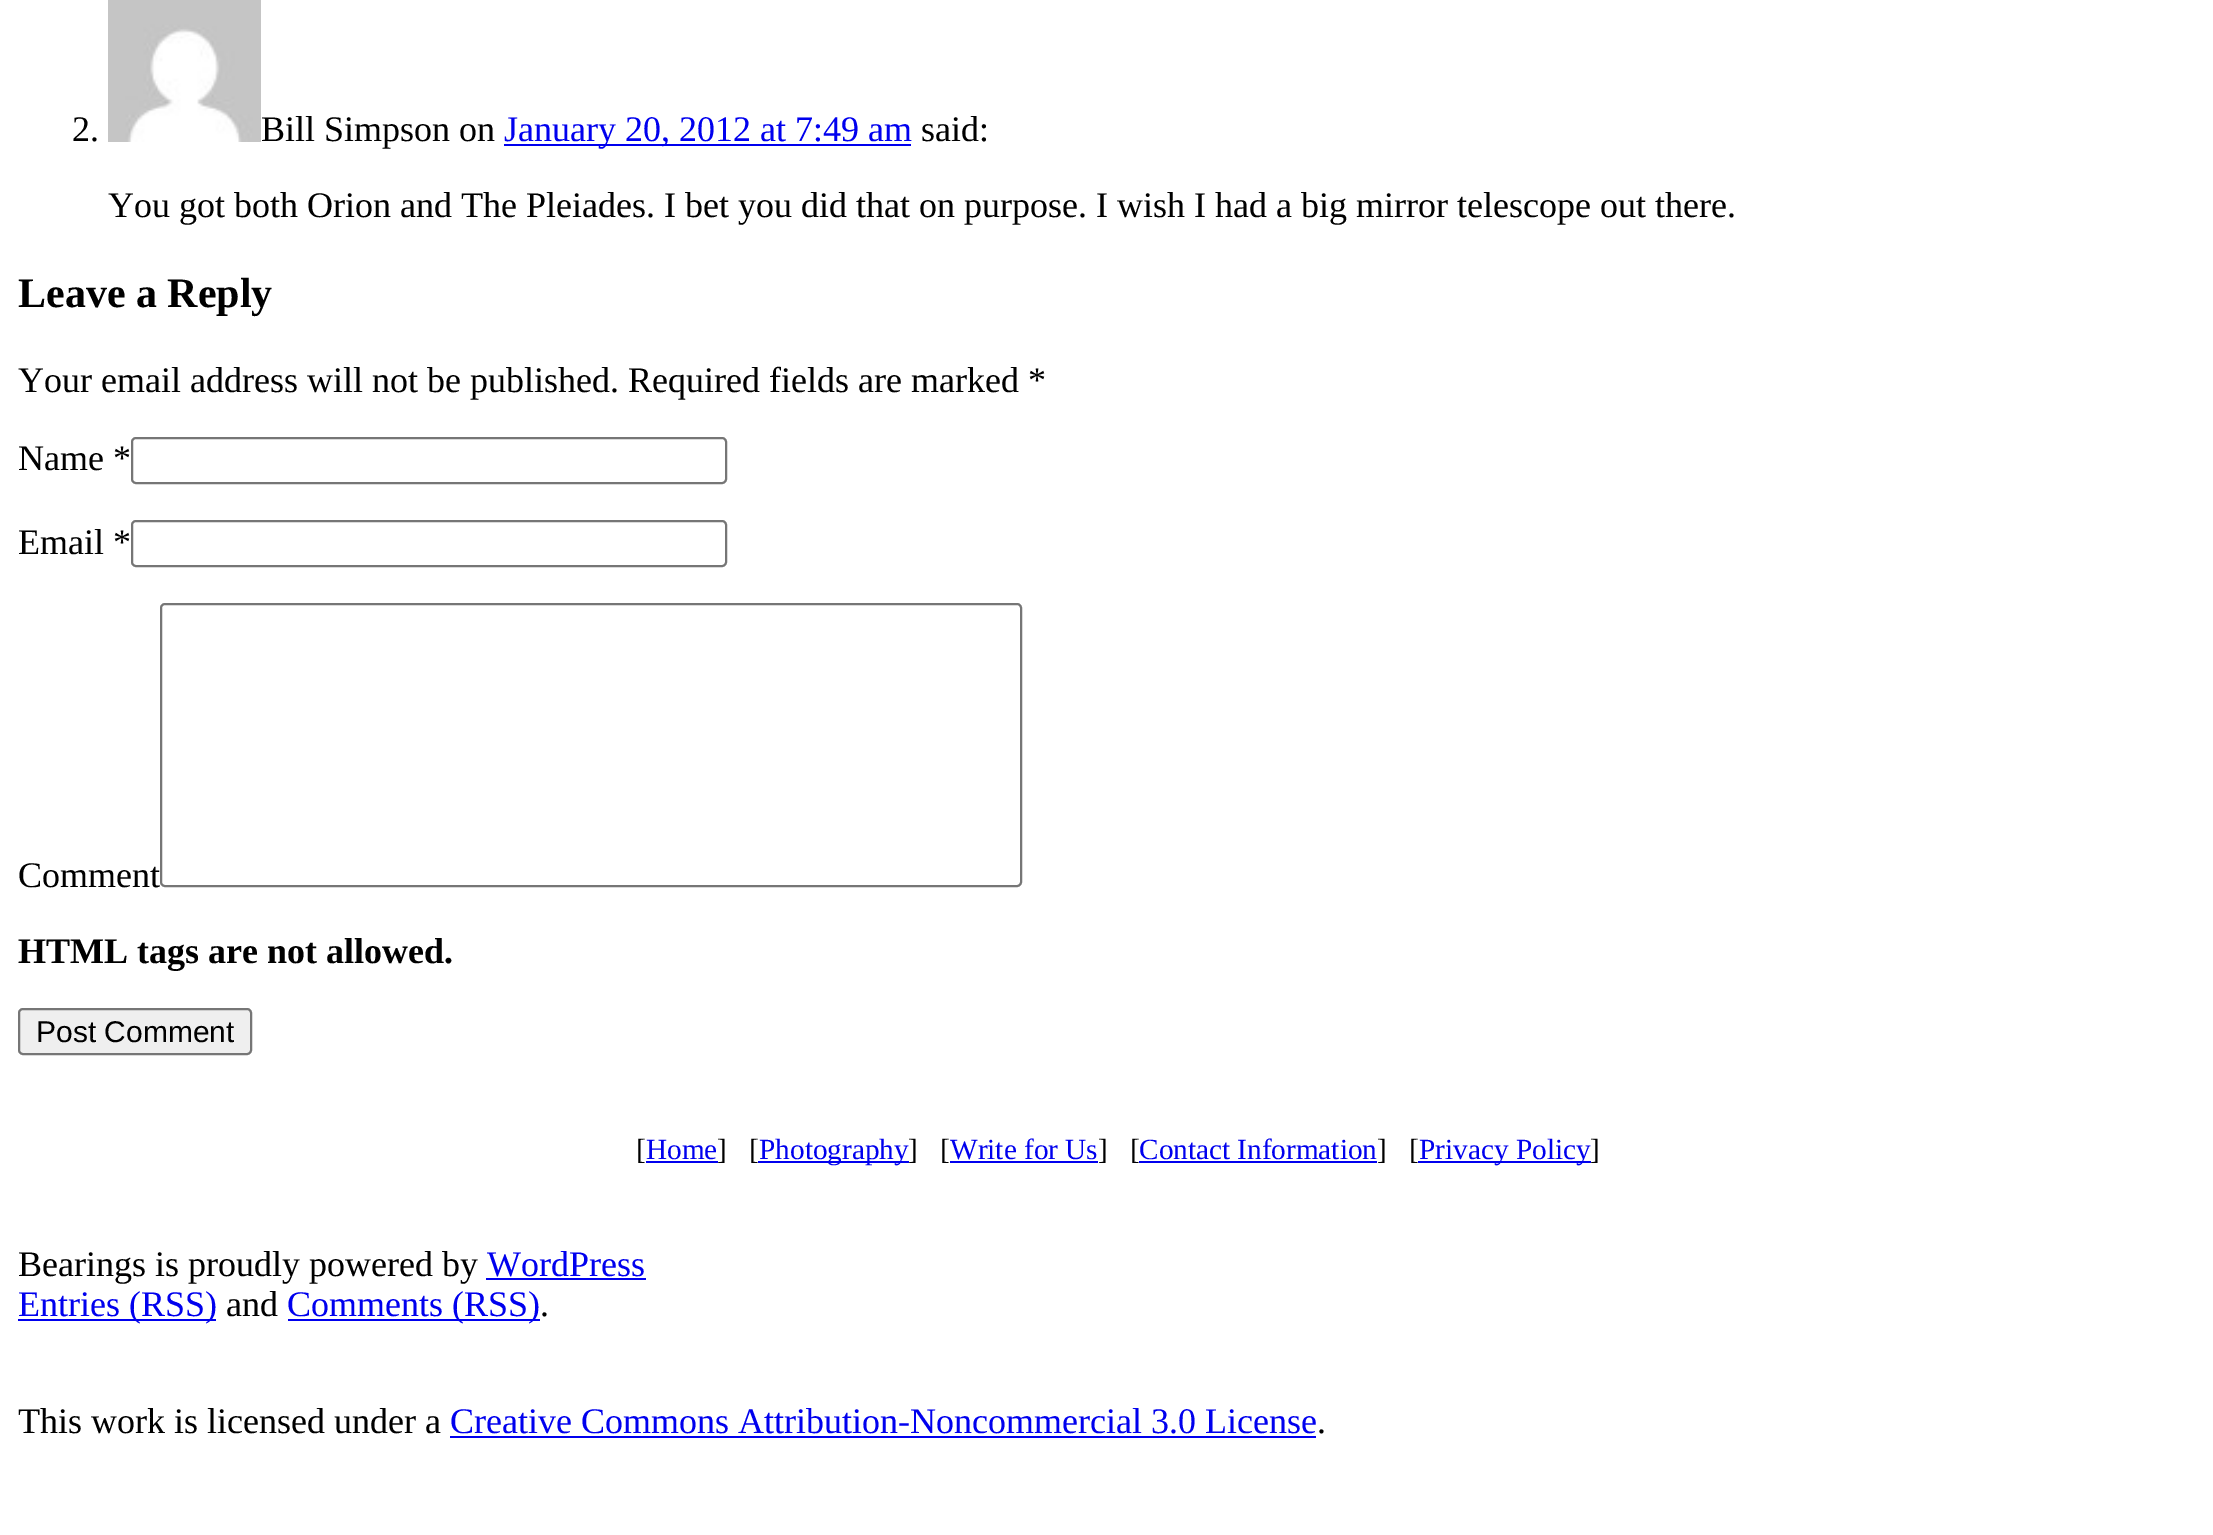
%!PS
<< /PageSize [2213 1535] >> setpagedevice
/f/fill load def
/s/stroke load def
/q/gsave load def
/Q_/grestore load def
/w/setlinewidth load def
/C { dup -16 bitshift 255 div exch dup -8 bitshift 255 and 255 div exch 255 and 255 div setrgbcolor } def
/F { [ exch dup neg 0 0 3 -1 roll 0 0 ] selectfont } def
/T { moveto show } def
/R { rectfill } def
/Q { 5 dict begin { /r /h /w /y /x } { exch def } forall
  x r add y moveto x w add y 2 copy h add r arct x w add y h add x 1 index r arct
  x y h add x y r arct x y 2 copy exch w add exch r arct closepath end } def
/I { 5 dict begin { /h /w /y /x /name } { exch def } forall
  gsave x y translate w h scale
  w h 8 [w 0 0 h 0 0] name (r) file false 3 colorimage grestore end } def
0 1535 translate 1 -1 scale
4 setmiterlimit
16#FFFFFF C
0 0 2213 1535 R
/LiberationSerif-Regular 36 F
16#000000 C
(2.) 72 141 T
(1.rgb) 108 0 153 142 I
(Bill Simpson on) 261 141 T
16#0000EE C
504 144 407 2 R
(January 20, 2012 at 7:49 am) 504 141 T
16#000000 C
(said:) 921 141 T
(You got both Orion and The Pleiades. I bet you did that on purpose. I wish I had a big mirror telescope out there.) 108 217 T
/LiberationSerif-Bold 42 F
(Leave a Reply) 18 307 T
/LiberationSerif-Regular 36 F
(Your email address will not be published. Required fields are marked *) 18 392 T
(Name *) 18 470 T
16#767676 C
2 w
132 438 594 45 4 Q s
16#000000 C
(Email *) 18 554 T
16#767676 C
132 521 594 45 4 Q s
16#000000 C
(Comment) 18 887 T
16#767676 C
161 604 860 282 4 Q s
/LiberationSerif-Bold 36 F
16#000000 C
(HTML tags are not allowed.) 18 963 T
16#EFEFEF C
19 1009 232 45 4 Q q f Q_
16#767676 C
s
/LiberationSans-Regular 30 F
16#000000 C
(Post Comment) 36 1042 T
/LiberationSerif-Regular 29.25 F
([) 636 1159 T
16#0000EE C
(Home) 646 1159 T
16#000000 C
(]   [) 717 1159 T
16#0000EE C
646 1161 72 2 R
758 1161 151 2 R
(Photography) 759 1159 T
16#000000 C
(]   [) 908 1159 T
16#0000EE C
(Write for Us) 950 1159 T
16#000000 C
(]   [) 1098 1159 T
16#0000EE C
950 1161 148 2 R
1139 1161 238 2 R
(Contact Information) 1139 1159 T
16#000000 C
(]   [) 1377 1159 T
16#0000EE C
1418 1161 173 2 R
(Privacy Policy) 1419 1159 T
16#000000 C
(]) 1590 1159 T
/LiberationSerif-Regular 36 F
(Bearings is proudly powered by) 18 1276 T
16#0000EE C
(WordPress) 487 1276 T
486 1278 160 2 R
18 1319 198 2 R
(Entries \(RSS\)) 18 1316 T
16#000000 C
(and) 226 1316 T
16#0000EE C
288 1319 252 2 R
(Comments \(RSS\)) 287 1316 T
16#000000 C
(.) 540 1316 T
(This work is licensed under a) 18 1433 T
16#0000EE C
(Creative Commons Attribution-Noncommercial 3.0 License) 450 1433 T
450 1436 866 2 R
16#000000 C
(.) 1317 1433 T
showpage
